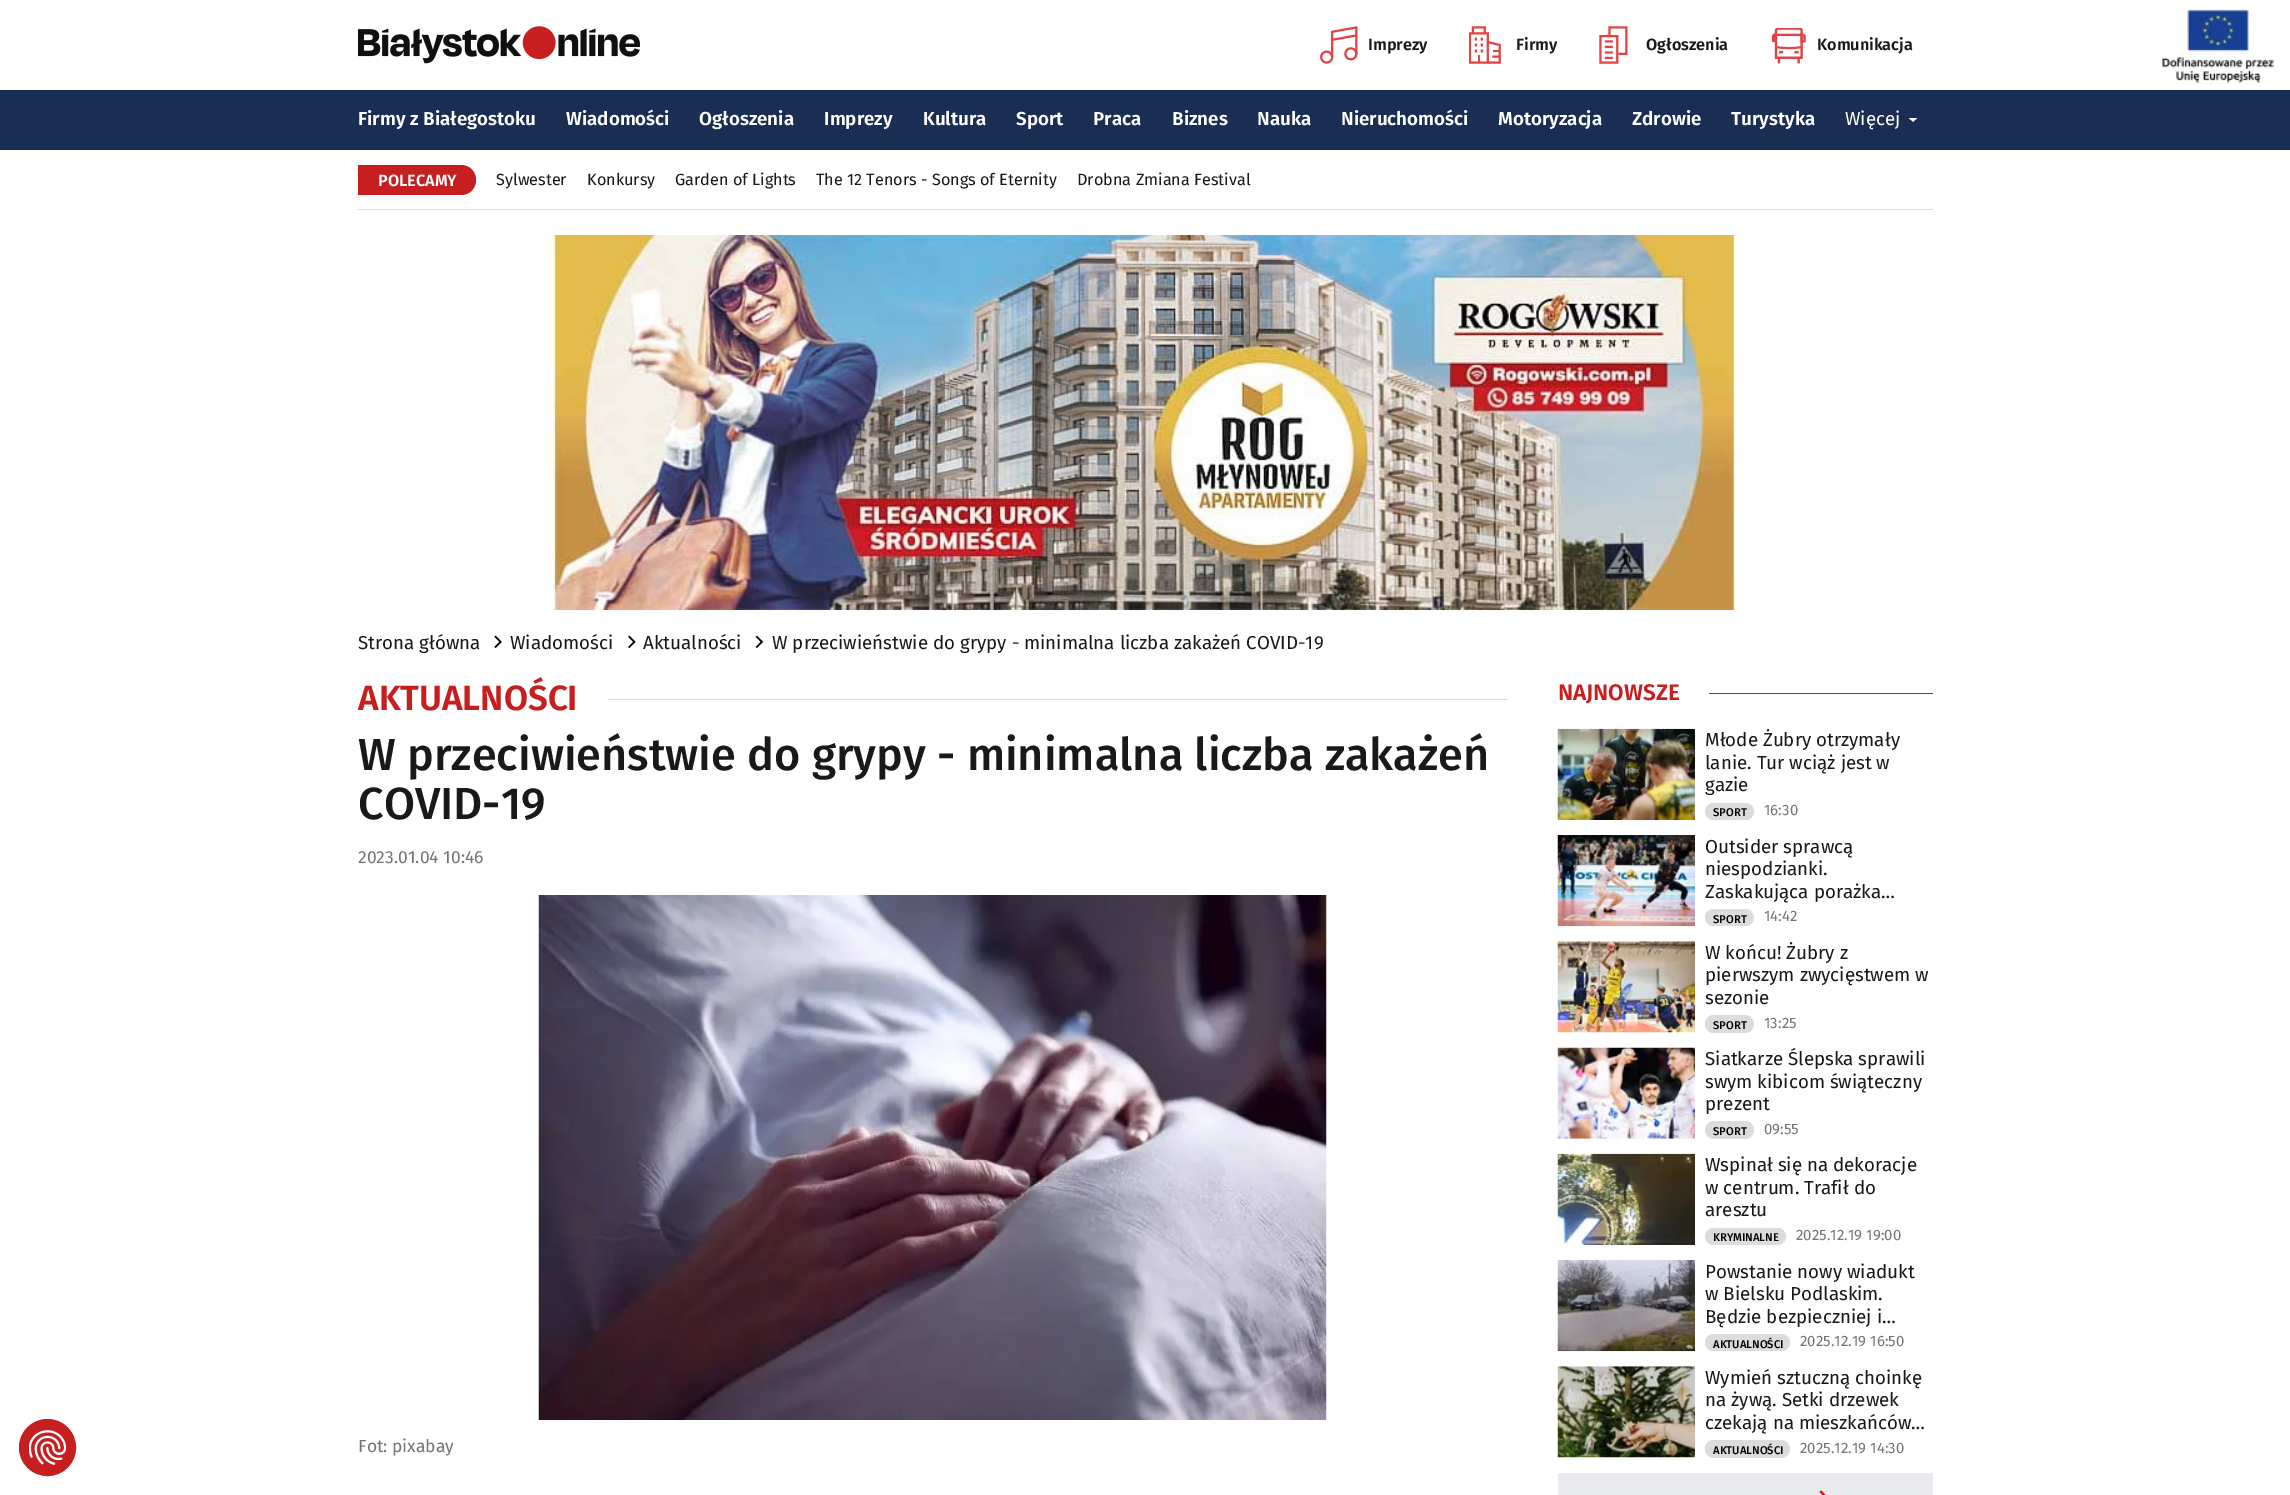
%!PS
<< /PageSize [2290 1495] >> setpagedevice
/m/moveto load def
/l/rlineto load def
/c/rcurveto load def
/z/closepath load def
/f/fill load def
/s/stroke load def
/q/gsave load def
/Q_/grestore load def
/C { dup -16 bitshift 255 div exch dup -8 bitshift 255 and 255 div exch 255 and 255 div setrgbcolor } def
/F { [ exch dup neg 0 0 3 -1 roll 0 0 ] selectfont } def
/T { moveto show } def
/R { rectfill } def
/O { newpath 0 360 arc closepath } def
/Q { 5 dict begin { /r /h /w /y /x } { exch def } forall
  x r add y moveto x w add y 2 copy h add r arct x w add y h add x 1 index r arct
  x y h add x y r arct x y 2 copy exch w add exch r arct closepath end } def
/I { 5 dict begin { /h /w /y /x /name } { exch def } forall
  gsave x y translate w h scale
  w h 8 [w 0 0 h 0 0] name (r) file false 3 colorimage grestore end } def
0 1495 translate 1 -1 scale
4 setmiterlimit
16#FFFFFF C
0 0 2290 1495 R
(1.rgb) 358 26 282 38 I
(2.rgb) 1320 26 38 38 I
/FiraSans-SemiBold 16.25 F
16#191919 C
(Imprezy) 1368 50 T
(3.rgb) 1469 26 32 38 I
(Firmy) 1516 50 T
(4.rgb) 1599 26 29 38 I
(Ogłoszenia) 1646 50 T
(5.rgb) 1771 28 35 36 I
(Komunikacja) 1817 50 T
(6.rgb) 2162 8 113 76 I
16#1A2E53 C
0 90 2290 60 R
/FiraSans-SemiBold 18.75 F
16#FFFFFF C
(Firmy z Białegostoku) 358 125 T
(Wiadomości) 566 125 T
(Ogłoszenia) 699 125 T
(Imprezy) 824 125 T
(Kultura) 923 125 T
(Sport) 1016 125 T
(Praca) 1093 125 T
(Biznes) 1172 125 T
(Nauka) 1257 125 T
(Nieruchomości) 1341 125 T
(Motoryzacja) 1498 125 T
(Zdrowie) 1632 125 T
(Turystyka) 1731 125 T
/FiraSans-Regular 18.75 F
(Więcej) 1845 125 T
q
1908 118 12 6 rectclip
1913 122 m -5.5 -5.5 l 11 0 l z f
Q_
16#DCDCDC C
358 209 1575 1 R
16#C71F1F C
358 165 m 103 0 l 8.5 0 15 6.5 15 15 c 0 8.5 -6.5 15 -15 15 c -103 0 l z f
/FiraSans-SemiBold 16.25 F
16#FFFFFF C
(POLECAMY) 378 186 T
/FiraSans-Regular 16.25 F
16#191919 C
(Sylwester) 496 185 T
(Konkursy) 587 185 T
(Garden of Lights) 675 185 T
(The 12 Tenors - Songs of Eternity) 816 185 T
(Drobna Zmiana Festival) 1077 185 T
(7.rgb) 539 235 1197 375 I
/FiraSans-Regular 18.75 F
(Strona główna) 358 649 T
(8.rgb) 494 635 8 14 I
(Wiadomości) 510 649 T
(9.rgb) 628 635 8 14 I
(Aktualności) 643 649 T
(10.rgb) 755 635 9 14 I
(W przeciwieństwie do grypy - minimalna liczba zakażeń COVID-19) 772 649 T
16#C71F1F C
47.5 1447.5 28 O q f Q_
s
(11.rgb) 29 1430 37 35 I
/FiraSans-SemiBold 35 F
(AKTUALNOŚCI) 358 710 T
16#DCDCDC C
608 699 900 1 R
/FiraSans-Medium 45 F
16#191919 C
(W przeciwieństwie do grypy - minimalna liczba zakażeń) 358 770 T
(COVID-19) 358 819 T
/FiraSans-Regular 17.5 F
16#747474 C
(2023.01.04 10:46) 358 863 T
(12.rgb) 538 895 789 525 I
(Fot: pixabay) 358 1452 T
/FiraSans-SemiBold 22.5 F
16#C71F1F C
(NAJNOWSZE) 1558 700 T
1709 693 224 1 R
(13.rgb) 1557 728 138 92 I
/FiraSans-Regular 18.75 F
16#191919 C
(Młode Żubry otrzymały) 1705 746 T
(lanie. Tur wciąż jest w) 1705 769 T
(gazie) 1705 791 T
16#DCDCDC C
1705 803 49 17 8.5 Q f
/FiraSans-Medium 11.25 F
16#000000 C
(SPORT) 1713 816 T
/FiraSans-Regular 15 F
16#747474 C
(16:30) 1764 815 T
(14.rgb) 1557 835 138 92 I
/FiraSans-Regular 18.75 F
16#191919 C
(Outsider sprawcą) 1705 853 T
(niespodzianki.) 1705 875 T
(Zaskakująca porażka…) 1705 898 T
16#DCDCDC C
1705 909 49 17 8.5 Q f
/FiraSans-Medium 11.25 F
16#000000 C
(SPORT) 1713 923 T
/FiraSans-Regular 15 F
16#747474 C
(14:42) 1764 921 T
(15.rgb) 1557 941 138 92 I
/FiraSans-Regular 18.75 F
16#191919 C
(W końcu! Żubry z) 1705 959 T
(pierwszym zwycięstwem w) 1705 981 T
(sezonie) 1705 1004 T
16#DCDCDC C
1705 1015 49 18 9 Q f
/FiraSans-Medium 11.25 F
16#000000 C
(SPORT) 1713 1029 T
/FiraSans-Regular 15 F
16#747474 C
(13:25) 1764 1028 T
(16.rgb) 1557 1047 138 92 I
/FiraSans-Regular 18.75 F
16#191919 C
(Siatkarze Ślepska sprawili) 1705 1065 T
(swym kibicom świąteczny) 1705 1088 T
(prezent) 1705 1110 T
16#DCDCDC C
1705 1121 49 18 9 Q f
/FiraSans-Medium 11.25 F
16#000000 C
(SPORT) 1713 1135 T
/FiraSans-Regular 15 F
16#747474 C
(09:55) 1764 1134 T
(17.rgb) 1557 1153 138 92 I
/FiraSans-Regular 18.75 F
16#191919 C
(Wspinał się na dekoracje) 1705 1171 T
(w centrum. Trafił do) 1705 1194 T
(aresztu) 1705 1216 T
16#DCDCDC C
1705 1228 81 17 8.5 Q f
/FiraSans-Medium 11.25 F
16#000000 C
(KRYMINALNE) 1713 1241 T
/FiraSans-Regular 15 F
16#747474 C
(2025.12.19 19:00) 1796 1240 T
(18.rgb) 1557 1260 138 92 I
/FiraSans-Regular 18.75 F
16#191919 C
(Powstanie nowy wiadukt) 1705 1278 T
(w Bielsku Podlaskim.) 1705 1300 T
(Będzie bezpieczniej i…) 1705 1323 T
16#DCDCDC C
1705 1334 85 17 8.5 Q f
/FiraSans-Medium 11.25 F
16#000000 C
(AKTUALNOŚCI) 1713 1348 T
/FiraSans-Regular 15 F
16#747474 C
(2025.12.19 16:50) 1800 1346 T
(19.rgb) 1557 1366 138 92 I
/FiraSans-Regular 18.75 F
16#191919 C
(Wymień sztuczną choinkę) 1705 1384 T
(na żywą. Setki drzewek) 1705 1406 T
(czekają na mieszkańców…) 1705 1429 T
16#DCDCDC C
1705 1440 85 18 9 Q f
/FiraSans-Medium 11.25 F
16#000000 C
(AKTUALNOŚCI) 1713 1454 T
/FiraSans-Regular 15 F
16#747474 C
(2025.12.19 14:30) 1800 1453 T
16#E8EAEE C
1558 1473 375 22 R
(20.rgb) 1819 1490 7 5 I
showpage
